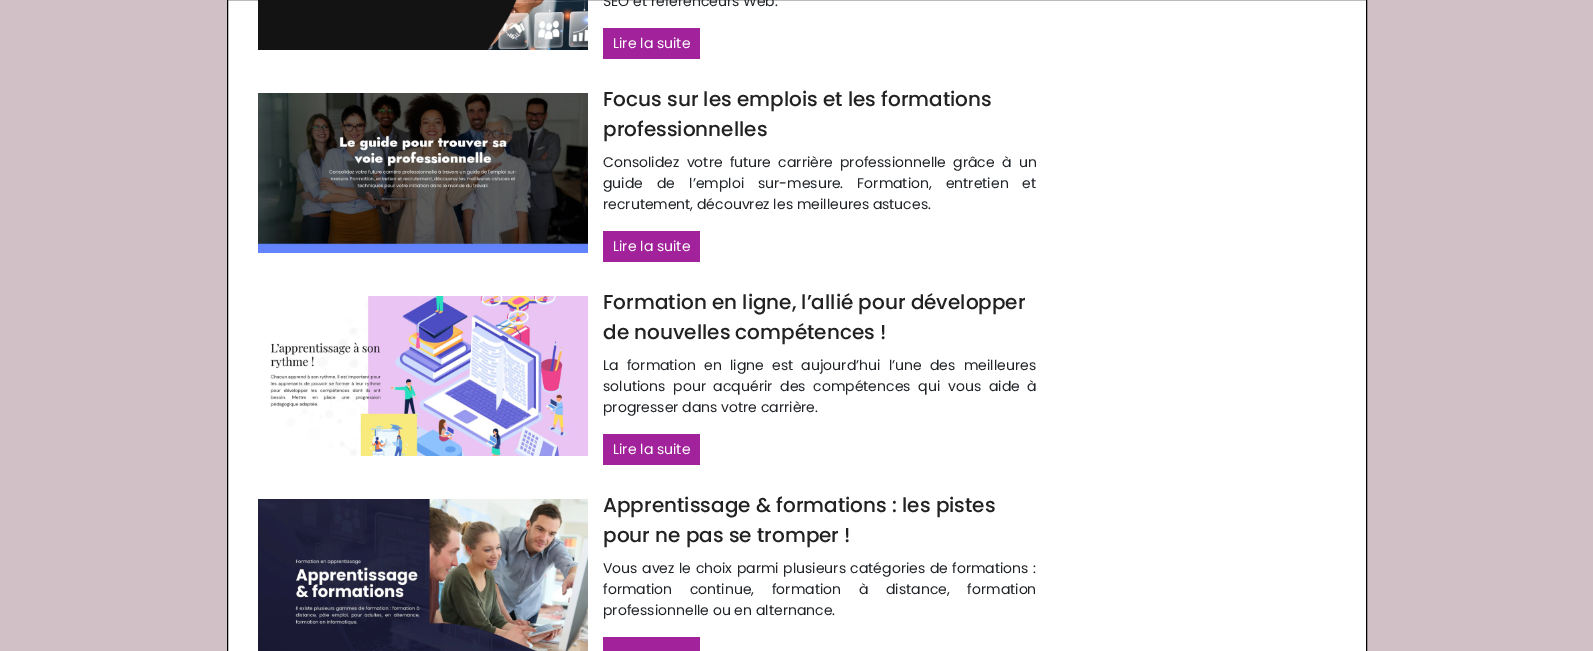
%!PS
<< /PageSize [1593 651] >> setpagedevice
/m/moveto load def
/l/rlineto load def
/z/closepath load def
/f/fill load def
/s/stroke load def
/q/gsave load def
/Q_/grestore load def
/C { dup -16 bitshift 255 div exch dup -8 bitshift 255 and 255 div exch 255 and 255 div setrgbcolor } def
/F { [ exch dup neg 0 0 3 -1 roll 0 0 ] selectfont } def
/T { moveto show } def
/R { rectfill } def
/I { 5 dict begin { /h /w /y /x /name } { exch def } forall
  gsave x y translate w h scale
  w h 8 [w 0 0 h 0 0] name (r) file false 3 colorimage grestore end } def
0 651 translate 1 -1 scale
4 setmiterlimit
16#D2C0C7 C
0 0 1593 651 R
16#FFFFFF C
227.5 -.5 m 1139 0 l 0 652 l -1139 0 l z q f Q_
16#000000 C
s
(1.rgb) 258 0 330 50 I
/Poppins-Regular 14 F
16#212529 C
(SEO et référenceurs Web.) 603 6 T
16#A2229C C
603 28 97 31 R
16#FFFFFF C
(Lire la suite) 613 48 T
(2.rgb) 258 93 330 160 I
/Poppins-Medium 20 F
16#222222 C
(Focus sur les emplois et les formations) 603 106 T
(professionnelles) 603 136 T
/Poppins-Regular 14 F
16#212529 C
603 167 m 3.5 0 32 (Consolidez votre future carrière professionnelle grâce à un) widthshow
603 188 m 10.25 0 32 (guide de l’emploi sur-mesure. Formation, entretien et) widthshow
(recrutement, découvrez les meilleures astuces.) 603 209 T
16#A2229C C
603 231 97 31 R
16#FFFFFF C
(Lire la suite) 613 251 T
(3.rgb) 270 296 318 160 I
/Poppins-Medium 20 F
16#222222 C
(Formation en ligne, l’allié pour développer) 603 309 T
(de nouvelles compétences !) 603 339 T
/Poppins-Regular 14 F
16#212529 C
603 370 m 4.5 0 32 (La formation en ligne est aujourd’hui l’une des meilleures) widthshow
603 391 m 4 0 32 (solutions pour acquérir des compétences qui vous aide à) widthshow
(progresser dans votre carrière.) 603 412 T
16#A2229C C
603 434 97 31 R
16#FFFFFF C
(Lire la suite) 613 454 T
(4.rgb) 258 499 330 152 I
/Poppins-Medium 20 F
16#222222 C
(Apprentissage & formations : les pistes) 603 512 T
(pour ne pas se tromper !) 603 542 T
/Poppins-Regular 14 F
16#212529 C
603 573 m .75 0 32 (Vous avez le choix parmi plusieurs catégories de formations :) widthshow
603 594 m 14 0 32 (formation continue, formation à distance, formation) widthshow
(professionnelle ou en alternance.) 603 615 T
16#A2229C C
603 637 97 14 R
showpage
